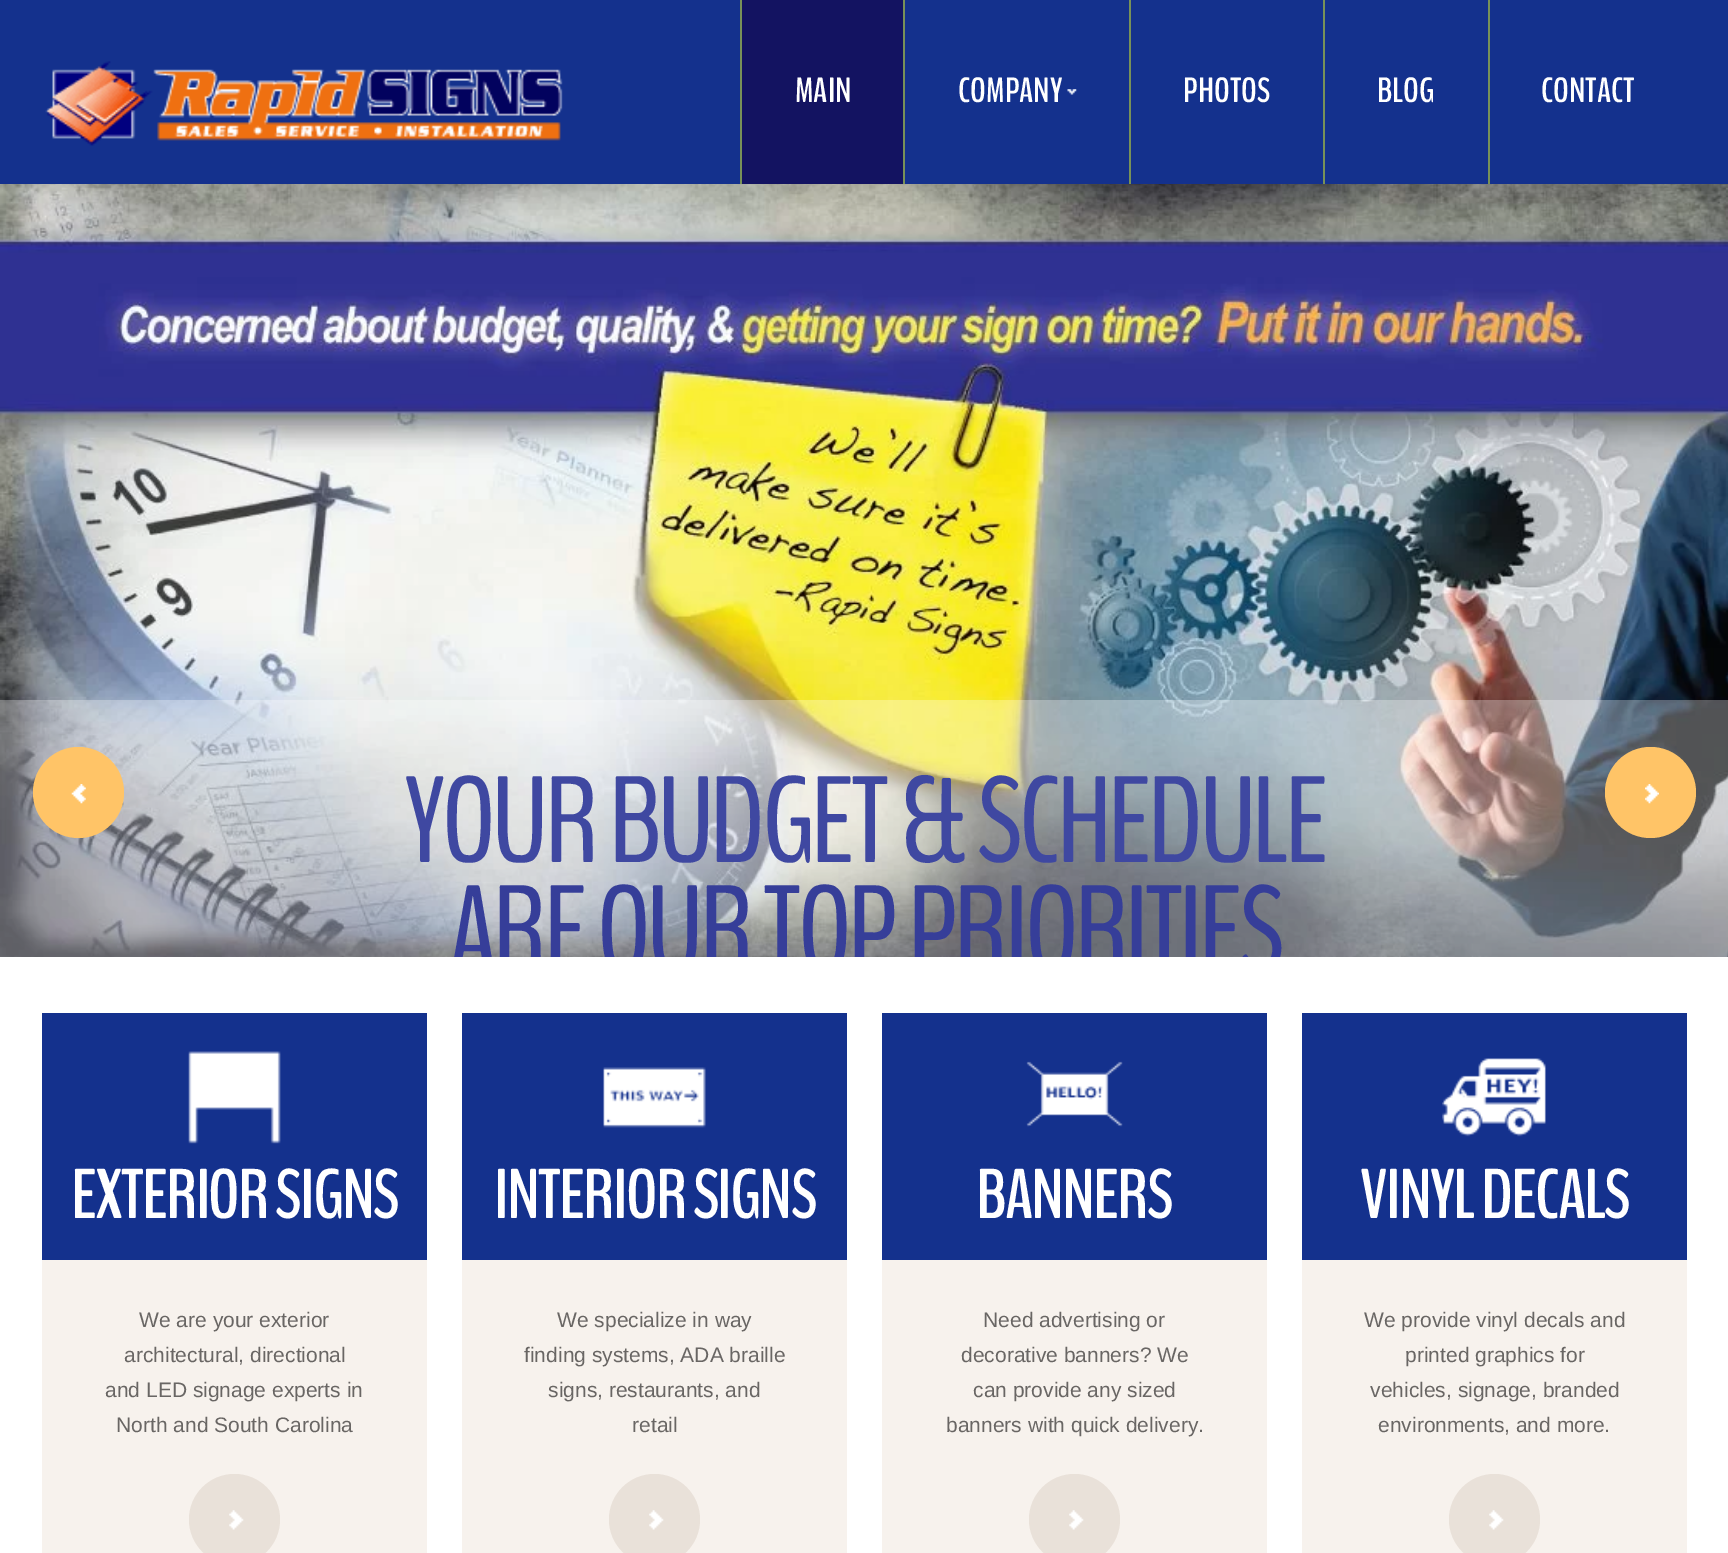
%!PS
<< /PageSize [1728 1553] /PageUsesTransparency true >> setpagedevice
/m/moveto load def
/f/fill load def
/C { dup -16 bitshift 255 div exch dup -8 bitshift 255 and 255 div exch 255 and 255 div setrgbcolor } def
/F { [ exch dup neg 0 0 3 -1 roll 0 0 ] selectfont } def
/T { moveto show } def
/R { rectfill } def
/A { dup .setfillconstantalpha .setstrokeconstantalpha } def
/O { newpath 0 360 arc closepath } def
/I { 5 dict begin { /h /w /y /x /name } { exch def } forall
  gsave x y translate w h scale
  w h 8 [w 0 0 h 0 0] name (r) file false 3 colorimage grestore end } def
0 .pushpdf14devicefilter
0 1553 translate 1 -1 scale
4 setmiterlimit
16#FFFFFF C
0 0 1728 1553 R
16#14318D C
0 0 1728 184 R
(1.rgb) 45 61 518 85 I
16#789158 C
740 0 2 184 R
16#131361 C
742 0 161 184 R
/BenchNine-Bold 35 F
16#FFFFFF C
(MAIN) 795 102 T
16#789158 C
903 0 2 184 R
16#FFFFFF C
(COMPANY) 958 102 T
(2.rgb) 1067 89 10 6 I
16#789158 C
1129 0 2 184 R
16#FFFFFF C
(PHOTOS) 1183 102 T
16#789158 C
1323 0 2 184 R
16#FFFFFF C
(BLOG) 1377 102 T
16#789158 C
1488 0 2 184 R
16#FFFFFF C
(CONTACT) 1541 102 T
(3.rgb) 0 184 1728 773 I
0.31 A
0 700 1728 257 R
1 A
16#FFC467 C
78.5 792.5 45.5 O f
(4.rgb) 71 784 15 20 I
/BenchNine-Regular 122.5 F
16#3F48A1 C
404 862 m -3.5 0 (YOUR BUDGET & SCHEDULE) ashow
16#363E99 C
449 971 m -3.5 0 (ARE OUR TOP PRIORITIES) ashow
16#FFC467 C
1650.5 792.5 45.5 O f
(5.rgb) 1645 784 14 20 I
16#FFFFFF C
451 957 829 15 R
16#F7F2ED C
42 1260 385 293 R
16#14318D C
42 1013 385 247 R
(6.rgb) 188 1051 93 93 I
/BenchNine-Bold 70 F
16#FFFFFF C
71 1218 m -1.75 0 (EXTERIOR SIGNS) ashow
/LiberationSans-Regular 21 F
16#696664 C
(We are your exterior) 139 1327 T
(architectural, directional) 124 1362 T
(and LED signage experts in) 105 1397 T
(North and South Carolina) 116 1432 T
16#E9E1D9 C
234.5 1519.5 45.5 O f
(7.rgb) 229 1510 15 20 I
16#F7F2ED C
462 1260 385 293 R
16#14318D C
462 1013 385 247 R
(8.rgb) 603 1067 103 61 I
/BenchNine-Bold 70 F
16#FFFFFF C
494 1218 m -1.75 0 (INTERIOR SIGNS) ashow
/LiberationSans-Regular 21 F
16#696664 C
(We specialize in way) 557 1327 T
(finding systems, ADA braille) 524 1362 T
(signs, restaurants, and) 548 1397 T
(retail) 632 1432 T
16#E9E1D9 C
654.5 1519.5 45.5 O f
(7.rgb) 649 1510 15 20 I
16#F7F2ED C
882 1260 385 293 R
16#14318D C
882 1013 385 247 R
(9.rgb) 1026 1061 97 66 I
/BenchNine-Bold 70 F
16#FFFFFF C
976 1218 m -1.75 0 (BANNERS) ashow
/LiberationSans-Regular 21 F
16#696664 C
(Need advertising or) 983 1327 T
(decorative banners? We) 961 1362 T
(can provide any sized) 973 1397 T
(banners with quick delivery.) 946 1432 T
16#E9E1D9 C
1074.5 1519.5 45.5 O f
(10.rgb) 1069 1510 15 20 I
16#F7F2ED C
1302 1260 385 293 R
16#14318D C
1302 1013 385 247 R
(11.rgb) 1442 1058 104 79 I
/BenchNine-Bold 70 F
16#FFFFFF C
1360 1218 m -1.75 0 (VINYL DECALS) ashow
/LiberationSans-Regular 21 F
16#696664 C
(We provide vinyl decals and) 1364 1327 T
(printed graphics for) 1405 1362 T
(vehicles, signage, branded) 1370 1397 T
(environments, and more.) 1378 1432 T
16#E9E1D9 C
1494.5 1519.5 45.5 O f
(7.rgb) 1489 1510 15 20 I
.poppdf14devicefilter showpage
